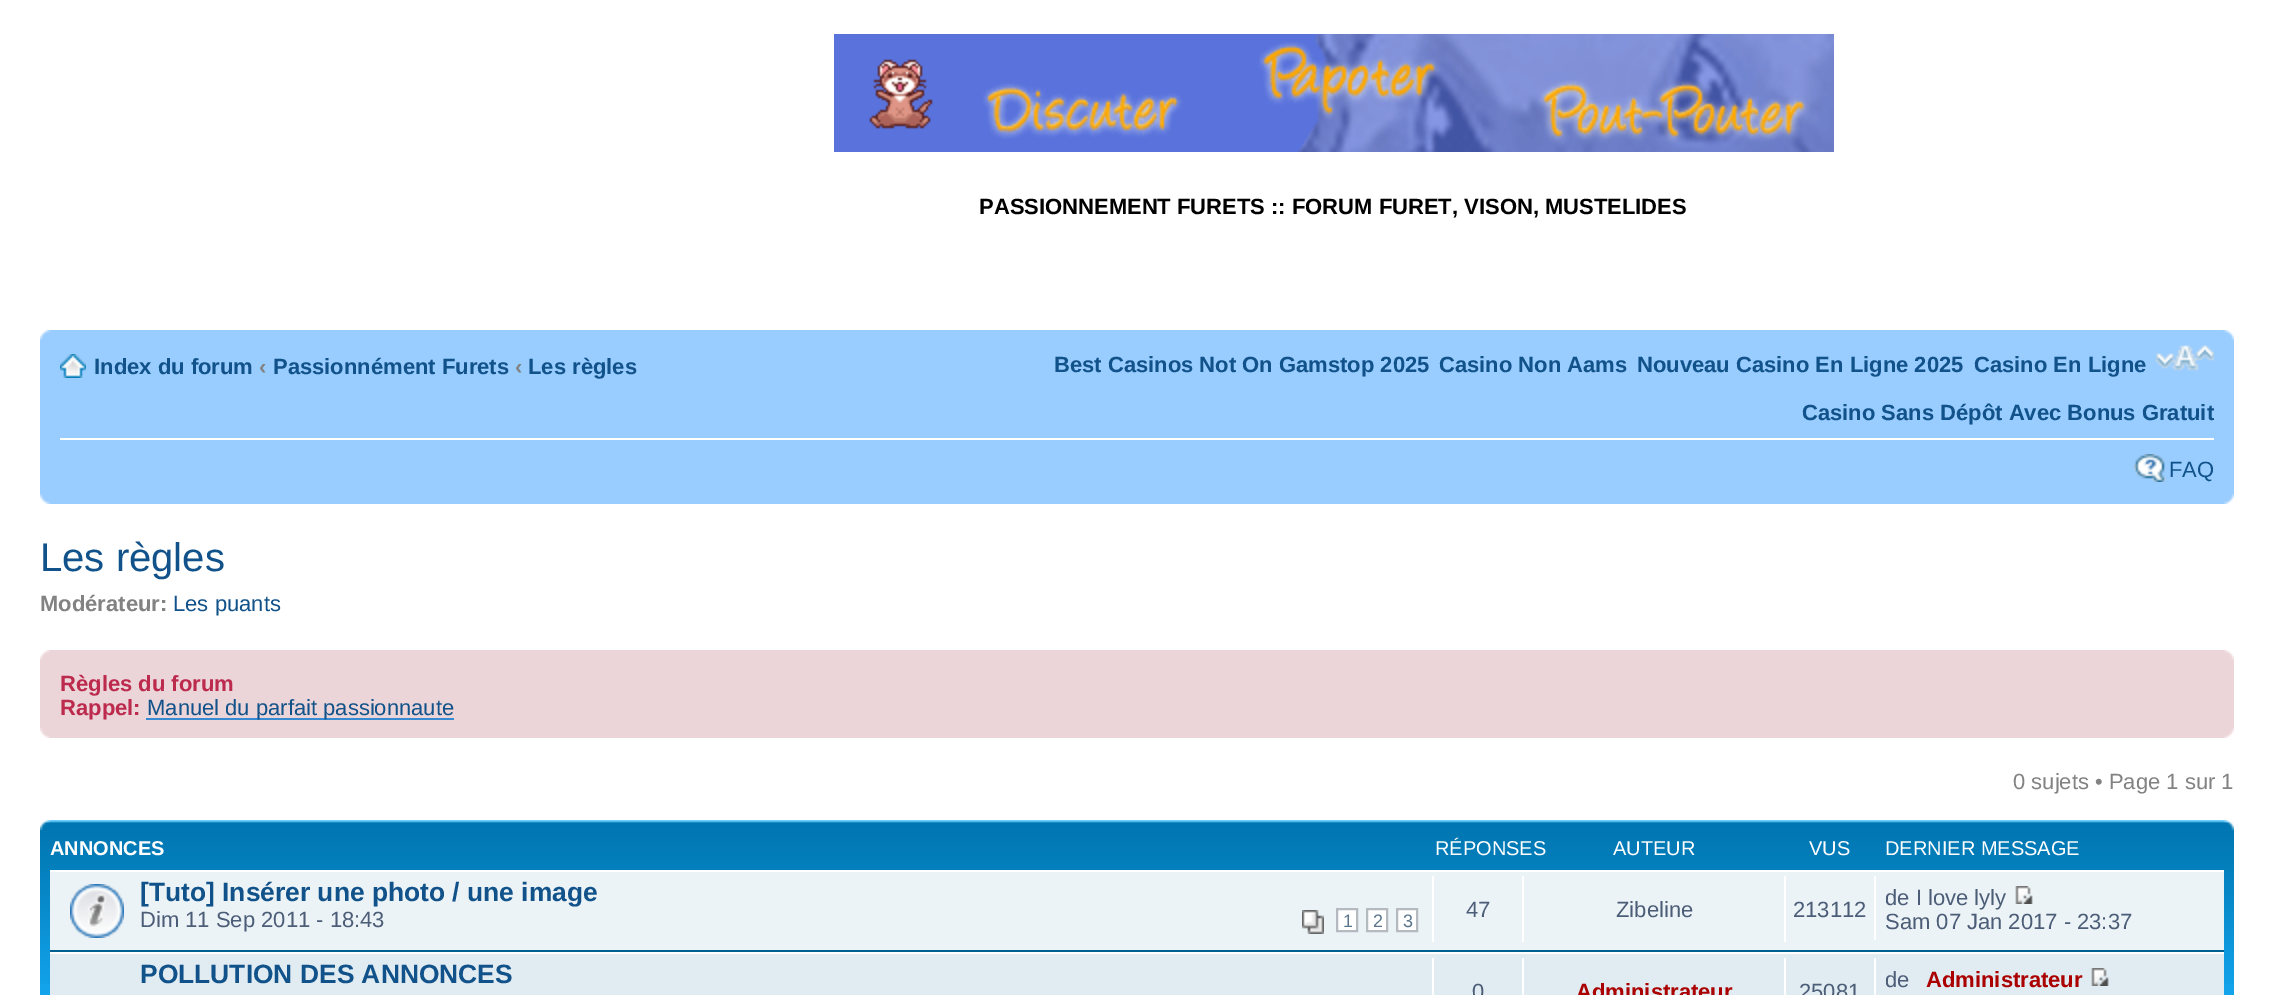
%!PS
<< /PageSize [2273 995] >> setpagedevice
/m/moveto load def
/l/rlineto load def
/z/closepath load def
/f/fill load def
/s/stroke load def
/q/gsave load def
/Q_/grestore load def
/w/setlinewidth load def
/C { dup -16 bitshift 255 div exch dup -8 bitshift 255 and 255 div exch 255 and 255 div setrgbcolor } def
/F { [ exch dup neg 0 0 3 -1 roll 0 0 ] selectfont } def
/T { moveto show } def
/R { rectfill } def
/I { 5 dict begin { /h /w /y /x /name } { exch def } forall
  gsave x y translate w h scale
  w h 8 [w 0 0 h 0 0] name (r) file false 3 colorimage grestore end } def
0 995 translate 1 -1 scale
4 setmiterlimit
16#FFFFFF C
0 0 2273 995 R
(1.rgb) 834 34 1000 118 I
/LiberationSans-Bold 22 F
16#000000 C
(PASSIONNEMENT FURETS :: FORUM FURET, VISON, MUSTELIDES) 979 214 T
16#99CCFF C
40 330 2194 174 R
(2.rgb) 40 330 11 10 I
(3.rgb) 2223 330 11 10 I
16#FFFFFF C
60 438 2154 2 R
(4.rgb) 60 354 26 24 I
16#105289 C
(Index du forum) 94 374 T
16#828282 C
(‹) 259 374 T
16#105289 C
(Passionnément Furets) 273 374 T
16#828282 C
(‹) 515 374 T
16#105289 C
(Les règles) 528 374 T
(Best Casinos Not On Gamstop 2025) 1054 372 T
(Casino Non Aams) 1439 372 T
(Nouveau Casino En Ligne 2025) 1637 372 T
(Casino En Ligne) 1974 372 T
(5.rgb) 2156 345 58 26 I
(Casino Sans Dépôt Avec Bonus Gratuit) 1802 420 T
(6.rgb) 2134 454 32 28 I
/LiberationSans-Regular 22 F
(FAQ) 2169 477 T
(7.rgb) 40 494 11 10 I
(8.rgb) 2223 494 11 10 I
/LiberationSans-Regular 40 F
(Les règles) 40 571 T
/LiberationSans-Bold 22 F
16#828282 C
(Modérateur:) 40 611 T
/LiberationSans-Regular 22 F
16#105289 C
(Les puants) 173 611 T
16#ECD5D8 C
40 650 2194 88 R
(9.rgb) 40 650 10 10 I
(10.rgb) 2224 650 10 10 I
/LiberationSans-Bold 22 F
16#BC2A4D C
(Règles du forum) 60 691 T
(Rappel:) 60 715 T
16#368AD2 C
146 718 308 2 R
/LiberationSans-Regular 22 F
16#105289 C
(Manuel du parfait passionnaute) 147 715 T
(11.rgb) 40 728 10 10 I
(12.rgb) 2224 728 10 10 I
16#828282 C
(0 sujets • Page 1 sur 1) 2013 789 T
16#12A3EB C
40 984 2194 11 R
(13.rgb) 40 820 2194 164 I
(14.rgb) 40 820 11 10 I
(15.rgb) 2223 820 11 10 I
/LiberationSans-Bold 20 F
16#FFFFFF C
(ANNONCES) 50 855 T
/LiberationSans-Regular 20 F
(RÉPONSES) 1435 855 T
(AUTEUR) 1613 855 T
(VUS) 1809 855 T
(DERNIER MESSAGE) 1885 855 T
16#ECF3F7 C
50 872 2174 78 R
16#FFFFFF C
50 870 2174 2 R
16#00608F C
50 950 2174 2 R
(16.rgb) 70 884 54 54 I
/LiberationSans-Bold 26.4 F
16#105289 C
([Tuto] Insérer une photo / une image) 140 901 T
/LiberationSans-Regular 22 F
16#4C5D77 C
(Dim 11 Sep 2011 - 18:43) 140 927 T
(17.rgb) 1302 910 22 24 I
16#FFFFFF C
1337 909 m 20 0 l 0 22 l -20 0 l z q f Q_
16#B4BAC0 C
2 w
s
/LiberationSans-Regular 18 F
16#5C758C C
(1) 1343 927 T
16#FFFFFF C
1367 909 m 20 0 l 0 22 l -20 0 l z q f Q_
16#B4BAC0 C
s
16#5C758C C
(2) 1373 927 T
16#FFFFFF C
1397 909 m 20 0 l 0 22 l -20 0 l z q f Q_
16#B4BAC0 C
s
16#5C758C C
(3) 1403 927 T
16#FFFFFF C
1432 876 2 66 R
/LiberationSans-Regular 22 F
16#4C5D77 C
(47) 1466 917 T
16#FFFFFF C
1522 876 2 66 R
16#4C5D77 C
(Zibeline) 1616 917 T
16#FFFFFF C
1784 876 2 66 R
16#4C5D77 C
(213112) 1793 917 T
16#FFFFFF C
1874 876 2 64 R
16#4C5D77 C
(de I love lyly) 1885 905 T
(18.rgb) 2015 886 18 18 I
(Sam 07 Jan 2017 - 23:37) 1885 929 T
16#E1EBF2 C
50 954 2174 41 R
16#FFFFFF C
50 952 2174 2 R
/LiberationSans-Bold 26.4 F
16#105289 C
(POLLUTION DES ANNONCES) 140 983 T
16#FFFFFF C
1432 958 2 37 R
/LiberationSans-Regular 22 F
16#4C5D77 C
(0) 1472 999 T
16#FFFFFF C
1522 958 2 37 R
/LiberationSans-Bold 22 F
16#AA0000 C
(Administrateur) 1576 999 T
16#FFFFFF C
1784 958 2 37 R
/LiberationSans-Regular 22 F
16#4C5D77 C
(25081) 1799 999 T
16#FFFFFF C
1874 958 2 37 R
16#4C5D77 C
(de) 1885 987 T
/LiberationSans-Bold 22 F
16#AA0000 C
(Administrateur) 1926 987 T
(19.rgb) 2091 968 18 18 I
showpage
